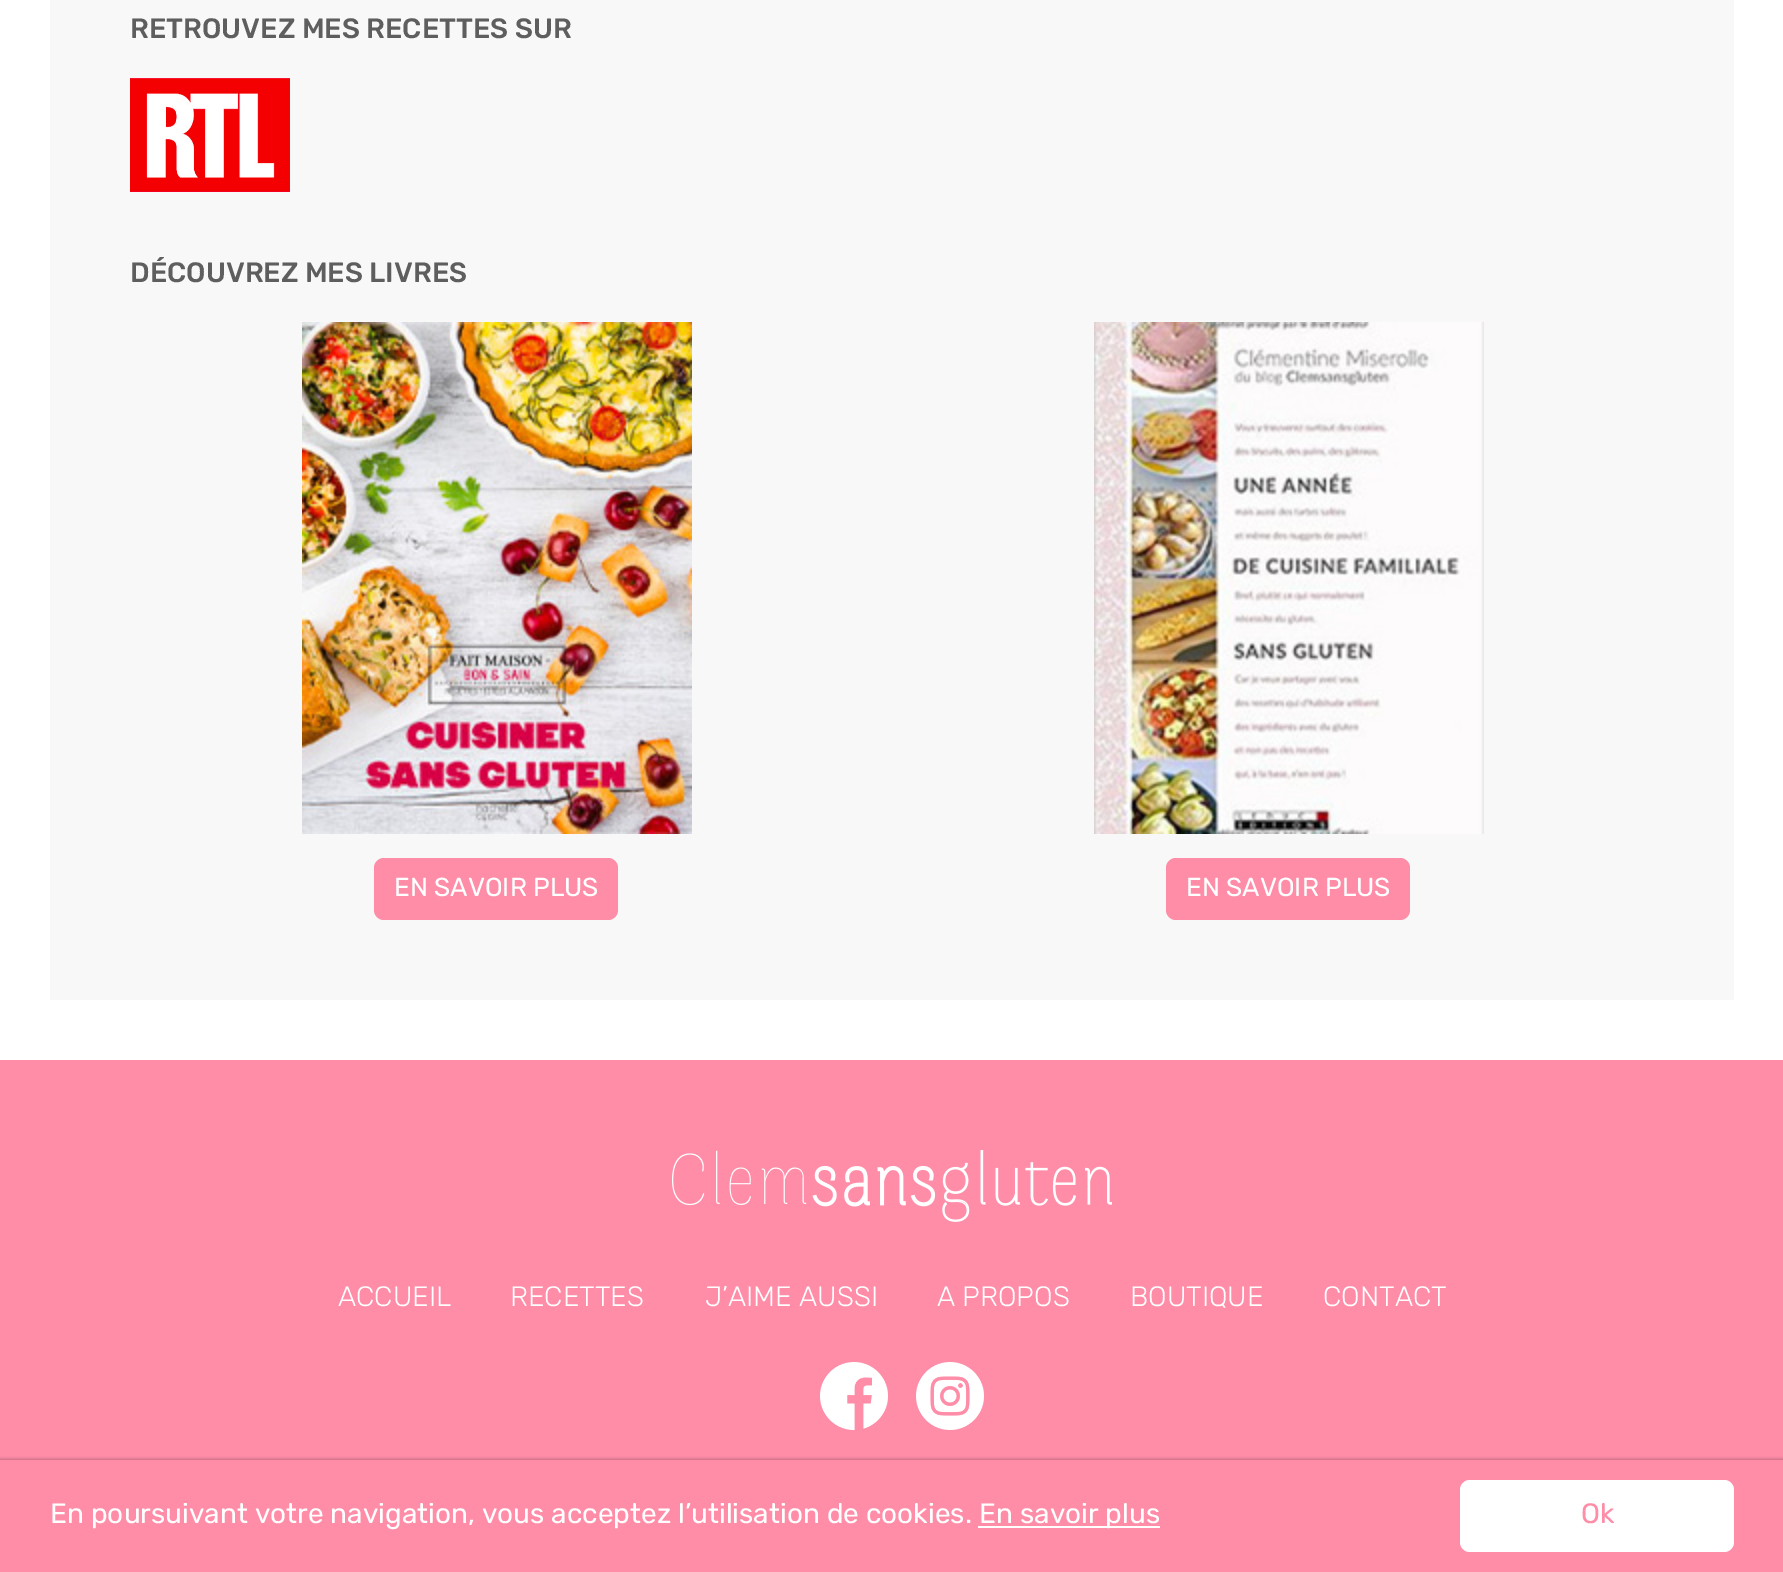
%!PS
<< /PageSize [1783 1572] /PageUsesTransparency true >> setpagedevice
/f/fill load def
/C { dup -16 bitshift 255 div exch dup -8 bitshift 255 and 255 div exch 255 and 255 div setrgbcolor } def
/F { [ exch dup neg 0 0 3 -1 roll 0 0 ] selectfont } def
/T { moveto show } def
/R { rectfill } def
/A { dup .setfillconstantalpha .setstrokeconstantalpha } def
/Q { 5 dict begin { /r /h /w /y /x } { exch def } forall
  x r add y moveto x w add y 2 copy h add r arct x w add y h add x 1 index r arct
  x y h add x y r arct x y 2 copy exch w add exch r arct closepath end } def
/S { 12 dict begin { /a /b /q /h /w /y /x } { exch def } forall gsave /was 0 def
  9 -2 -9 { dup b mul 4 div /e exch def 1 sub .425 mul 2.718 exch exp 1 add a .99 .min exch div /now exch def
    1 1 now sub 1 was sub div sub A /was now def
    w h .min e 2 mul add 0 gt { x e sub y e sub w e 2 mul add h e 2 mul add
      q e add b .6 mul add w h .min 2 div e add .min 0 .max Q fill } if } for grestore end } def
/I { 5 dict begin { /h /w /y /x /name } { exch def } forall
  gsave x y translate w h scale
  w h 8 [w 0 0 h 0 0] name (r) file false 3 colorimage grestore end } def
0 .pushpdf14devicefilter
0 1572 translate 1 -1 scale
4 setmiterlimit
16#FFFFFF C
0 0 1783 1572 R
16#F8F8F8 C
50 0 1684 1000 R
/Rubik-Medium 28 F
16#5F5E5E C
(RETROUVEZ MES RECETTES SUR) 130 38 T
(1.rgb) 130 78 160 114 I
(DÉCOUVREZ MES LIVRES) 130 282 T
(2.rgb) 302 322 390 512 I
16#FF8DA8 C
374 858 244 62 10 Q f
/Rubik-Regular 26 F
16#FFFFFF C
(EN SAVOIR PLUS) 394 896 T
(3.rgb) 1094 322 390 512 I
16#FF8DA8 C
1166 858 244 62 10 Q f
16#FFFFFF C
(EN SAVOIR PLUS) 1186 896 T
16#FF8DA8 C
0 1060 1783 400 R
(4.rgb) 672 1150 440 72 I
/Rubik-Light 28 F
16#FFFFFF C
(ACCUEIL) 338 1306 T
(RECETTES) 510 1306 T
(J’AIME AUSSI) 705 1306 T
(A PROPOS) 937 1306 T
(BOUTIQUE) 1130 1306 T
(CONTACT) 1323 1306 T
(5.rgb) 820 1362 68 68 I
(6.rgb) 916 1362 68 68 I
16#000000 C
0 1460 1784 112 0 2 .4 S
16#FF8DA8 C
0 1460 1783 112 R
/Rubik-Regular 28 F
16#FFFFFF C
(En poursuivant votre navigation, vous acceptez l’utilisation de cookies.) 50 1523 T
978 1526 182 2 R
(En savoir plus) 979 1523 T
1460 1480 274 72 10 Q f
16#FF8DA8 C
(Ok) 1581 1523 T
.poppdf14devicefilter showpage
